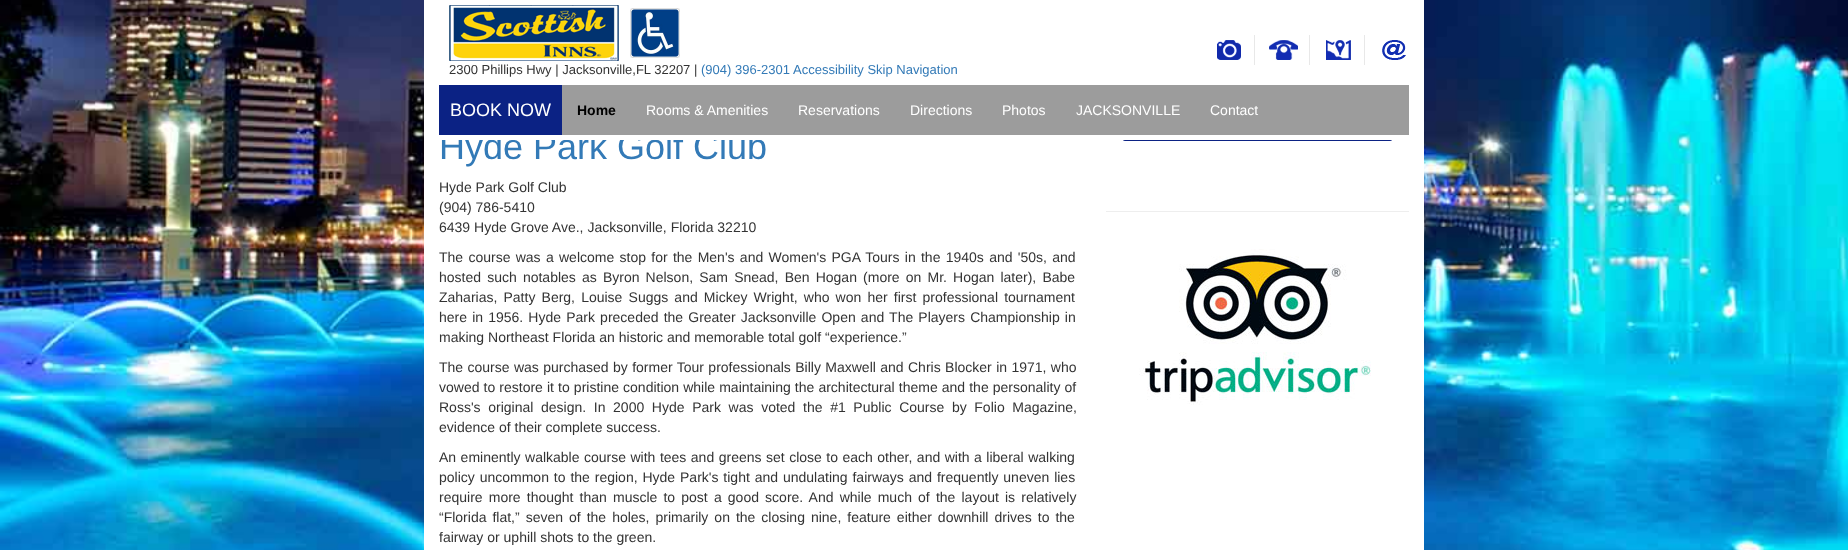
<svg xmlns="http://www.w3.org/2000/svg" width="1848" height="550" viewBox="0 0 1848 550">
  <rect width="100%" height="100%" fill="rgb(255,255,255)"/>
  <image x="0" y="0" width="1848" height="550" href="pic1.png"/>
  <rect x="424" y="140" width="1000" height="410" fill="rgb(255,255,255)"/>
  <text x="439" y="159" font-family="Liberation Sans" font-size="36" fill="rgb(51,122,183)">Hyde Park Golf Club</text>
  <path d="M1121 76H1394V136C1394 139 1392 141 1389 141H1126C1123 141 1121 139 1121 136Z" fill="rgb(11,34,132)"/>
  <rect x="424" y="0" width="1000" height="140" fill="rgb(255,255,255)"/>
  <image x="1217" y="40" width="24" height="20" href="pic2.png"/>
  <rect x="1254" y="35" width="1" height="30" fill="rgb(232,232,232)"/>
  <image x="1269" y="40" width="29" height="20" href="pic3.png"/>
  <rect x="1309" y="35" width="1" height="30" fill="rgb(232,232,232)"/>
  <image x="1326" y="40" width="25" height="20" href="pic4.png"/>
  <rect x="1364" y="35" width="1" height="30" fill="rgb(232,232,232)"/>
  <image x="1382" y="40" width="24" height="20" href="pic5.png"/>
  <image x="449" y="5" width="170" height="56" href="pic6.png"/>
  <image x="630" y="8" width="50" height="50" href="pic7.png"/>
  <text x="449" y="74" font-family="Liberation Sans" font-size="13" fill="rgb(51,51,51)">2300 Phillips Hwy | Jacksonville,FL 32207 |</text>
  <g font-family="Liberation Sans" font-size="13" fill="rgb(51,122,183)">
    <text x="701" y="74">(904) 396-2301</text>
    <text x="793" y="74">Accessibility Skip Navigation</text>
  </g>
  <rect x="562" y="85" width="847" height="50" fill="rgb(156,156,156)"/>
  <rect x="439" y="85" width="123" height="50" fill="rgb(11,34,132)"/>
  <text x="450" y="116" font-family="Liberation Sans" font-size="18" fill="rgb(255,255,255)">BOOK NOW</text>
  <text x="577" y="115" font-family="Liberation Sans" font-size="14" font-weight="bold" fill="rgb(0,0,0)">Home</text>
  <g font-family="Liberation Sans" font-size="14" fill="rgb(255,255,255)">
    <text x="646" y="115">Rooms &amp; Amenities</text>
    <text x="798" y="115">Reservations</text>
    <text x="910" y="115">Directions</text>
    <text x="1002" y="115">Photos</text>
    <text x="1076" y="115">JACKSONVILLE</text>
    <text x="1210" y="115">Contact</text>
  </g>
  <g font-family="Liberation Sans" font-size="14" fill="rgb(51,51,51)">
    <text>
      <tspan x="439" y="192">Hyde Park Golf Club</tspan>
      <tspan x="439" y="212">(904) 786-5410</tspan>
      <tspan x="439" y="232">6439 Hyde Grove Ave., Jacksonville, Florida 32210</tspan>
    </text>
    <text>
      <tspan x="439" y="262" word-spacing="1.4">The course was a welcome stop for the Men's and Women's PGA Tours in the 1940s and '50s, and</tspan>
      <tspan x="439" y="282" word-spacing="2.25">hosted such notables as Byron Nelson, Sam Snead, Ben Hogan (more on Mr. Hogan later), Babe</tspan>
      <tspan x="439" y="302" word-spacing="2.25">Zaharias, Patty Berg, Louise Suggs and Mickey Wright, who won her first professional tournament</tspan>
      <tspan x="439" y="322" word-spacing="1.25">here in 1956. Hyde Park preceded the Greater Jacksonville Open and The Players Championship in</tspan>
      <tspan x="439" y="342">making Northeast Florida an historic and memorable total golf “experience.”</tspan>
    </text>
    <text>
      <tspan x="439" y="372" word-spacing="0.5">The course was purchased by former Tour professionals Billy Maxwell and Chris Blocker in 1971, who</tspan>
      <tspan x="439" y="392" word-spacing="0.2">vowed to restore it to pristine condition while maintaining the architectural theme and the personality of</tspan>
      <tspan x="439" y="412" word-spacing="3.75">Ross's original design. In 2000 Hyde Park was voted the #1 Public Course by Folio Magazine,</tspan>
      <tspan x="439" y="432">evidence of their complete success.</tspan>
    </text>
    <text>
      <tspan x="439" y="462" word-spacing="0.6">An eminently walkable course with tees and greens set close to each other, and with a liberal walking</tspan>
      <tspan x="439" y="482" word-spacing="1">policy uncommon to the region, Hyde Park's tight and undulating fairways and frequently uneven lies</tspan>
      <tspan x="439" y="502" word-spacing="2.25">require more thought than muscle to post a good score. And while much of the layout is relatively</tspan>
      <tspan x="439" y="522" word-spacing="2.1">“Florida flat,” seven of the holes, primarily on the closing nine, feature either downhill drives to the</tspan>
      <tspan x="439" y="542">fairway or uphill shots to the green.</tspan>
    </text>
  </g>
  <rect x="1106" y="211" width="303" height="1" fill="rgb(238,238,238)"/>
  <image x="1139" y="249" width="232" height="156" href="pic8.png"/>
</svg>
